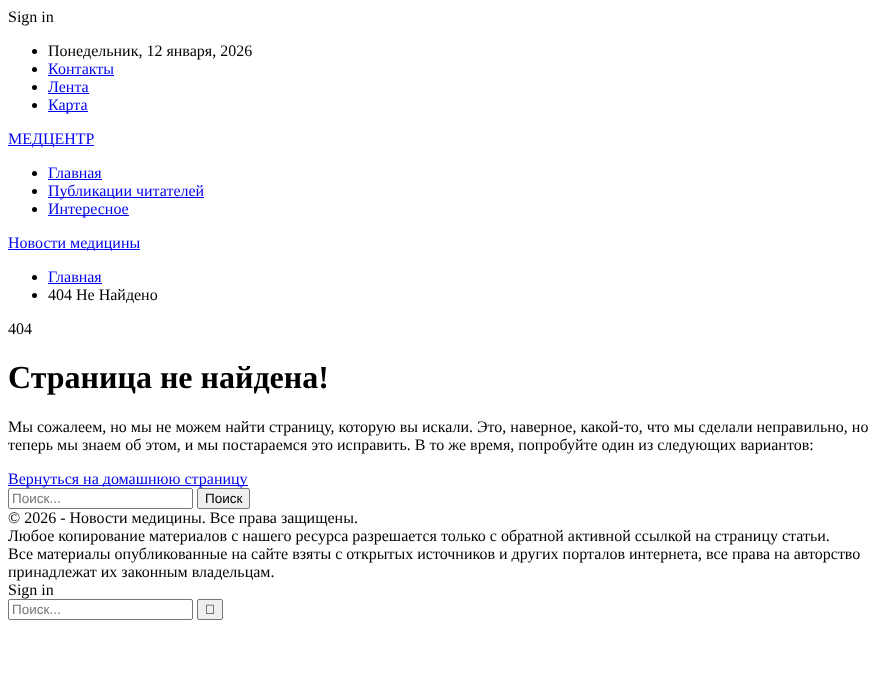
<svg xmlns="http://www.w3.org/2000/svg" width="890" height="673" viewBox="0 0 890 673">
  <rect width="100%" height="100%" fill="rgb(255,255,255)"/>
  <text x="8" y="22" font-family="Liberation Serif" font-size="16" fill="rgb(0,0,0)">Sign in</text>
  <circle cx="34.5" cy="51.5" r="2.5" fill="rgb(0,0,0)"/>
  <text x="48" y="56" font-family="Liberation Serif" font-size="16" fill="rgb(0,0,0)">Понедельник, 12 января, 2026</text>
  <circle cx="34.5" cy="69.5" r="2.5" fill="rgb(0,0,0)"/>
  <text x="48" y="74" font-family="Liberation Serif" font-size="16" fill="rgb(0,0,238)">Контакты</text>
  <rect x="48" y="75" width="66" height="1" fill="rgb(0,0,238)"/>
  <circle cx="34.5" cy="87.5" r="2.5" fill="rgb(0,0,0)"/>
  <text x="48" y="92" font-family="Liberation Serif" font-size="16" fill="rgb(0,0,238)">Лента</text>
  <rect x="48" y="93" width="41" height="1" fill="rgb(0,0,238)"/>
  <circle cx="34.5" cy="105.5" r="2.5" fill="rgb(0,0,0)"/>
  <rect x="48" y="111" width="40" height="1" fill="rgb(0,0,238)"/>
  <text x="48" y="110" font-family="Liberation Serif" font-size="16" fill="rgb(0,0,238)">Карта</text>
  <rect x="8" y="145" width="86" height="1" fill="rgb(0,0,238)"/>
  <text x="8" y="144" font-family="Liberation Serif" font-size="16" fill="rgb(0,0,238)">МЕДЦЕНТР</text>
  <circle cx="34.5" cy="173.5" r="2.5" fill="rgb(0,0,0)"/>
  <text x="48" y="178" font-family="Liberation Serif" font-size="16" fill="rgb(0,0,238)">Главная</text>
  <rect x="48" y="179" width="54" height="1" fill="rgb(0,0,238)"/>
  <circle cx="34.5" cy="191.5" r="2.5" fill="rgb(0,0,0)"/>
  <rect x="48" y="197" width="156" height="1" fill="rgb(0,0,238)"/>
  <text x="48" y="196" font-family="Liberation Serif" font-size="16" fill="rgb(0,0,238)">Публикации читателей</text>
  <circle cx="34.5" cy="209.5" r="2.5" fill="rgb(0,0,0)"/>
  <rect x="48" y="215" width="81" height="1" fill="rgb(0,0,238)"/>
  <text x="48" y="214" font-family="Liberation Serif" font-size="16" fill="rgb(0,0,238)">Интересное</text>
  <rect x="8" y="249" width="132" height="1" fill="rgb(0,0,238)"/>
  <text x="8" y="248" font-family="Liberation Serif" font-size="16" fill="rgb(0,0,238)">Новости медицины</text>
  <circle cx="34.5" cy="277.5" r="2.5" fill="rgb(0,0,0)"/>
  <text x="48" y="282" font-family="Liberation Serif" font-size="16" fill="rgb(0,0,238)">Главная</text>
  <rect x="48" y="283" width="54" height="1" fill="rgb(0,0,238)"/>
  <circle cx="34.5" cy="295.5" r="2.5" fill="rgb(0,0,0)"/>
  <g font-family="Liberation Serif" font-size="16" fill="rgb(0,0,0)">
    <text x="48" y="300">404 Не Найдено</text>
    <text x="8" y="334">404</text>
  </g>
  <text x="8" y="388" font-family="Liberation Serif" font-size="32" font-weight="bold" fill="rgb(0,0,0)">Страница не найдена!</text>
  <g font-family="Liberation Serif" font-size="16" fill="rgb(0,0,0)">
    <text>
      <tspan x="8" y="432">Мы сожалеем, но мы не можем найти страницу, которую вы искали. Это, наверное, какой-то, что мы сделали неправильно, но</tspan>
      <tspan x="8" y="450">теперь мы знаем об этом, и мы постараемся это исправить. В то же время, попробуйте один из следующих вариантов:</tspan>
    </text>
  </g>
  <rect x="8" y="485" width="240" height="1" fill="rgb(0,0,238)"/>
  <text x="8" y="484" font-family="Liberation Serif" font-size="16" fill="rgb(0,0,238)">Вернуться на домашнюю страницу</text>
  <rect x="8.5" y="488.5" width="184" height="20" rx="1.5" fill="none" stroke="rgb(118,118,118)"/>
  <text x="12" y="503" font-family="Liberation Sans" font-size="13.5" fill="rgb(117,117,117)">Поиск...</text>
  <rect x="197.5" y="488.5" width="52" height="20" rx="1.5" fill="rgb(239,239,239)" stroke="rgb(118,118,118)"/>
  <text x="205" y="503" font-family="Liberation Sans" font-size="13.5" fill="rgb(0,0,0)">Поиск</text>
  <g font-family="Liberation Serif" font-size="16" fill="rgb(0,0,0)">
    <text>
      <tspan x="8" y="523">© 2026 - Новости медицины. Все права защищены.</tspan>
      <tspan x="8" y="541">Любое копирование материалов с нашего ресурса разрешается только с обратной активной ссылкой на страницу статьи.</tspan>
      <tspan x="8" y="559">Все материалы опубликованные на сайте взяты с открытых источников и других порталов интернета, все права на авторство</tspan>
      <tspan x="8" y="577">принадлежат их законным владельцам.</tspan>
      <tspan x="8" y="595">Sign in</tspan>
    </text>
  </g>
  <rect x="8.5" y="599.5" width="184" height="20" rx="1.5" fill="none" stroke="rgb(118,118,118)"/>
  <text x="12" y="614" font-family="Liberation Sans" font-size="13.5" fill="rgb(117,117,117)">Поиск...</text>
  <rect x="197.5" y="599.5" width="25" height="20" rx="1.5" fill="rgb(239,239,239)" stroke="rgb(118,118,118)"/>
  <image x="206" y="604" width="8" height="10" href="pic1.png"/>
</svg>
